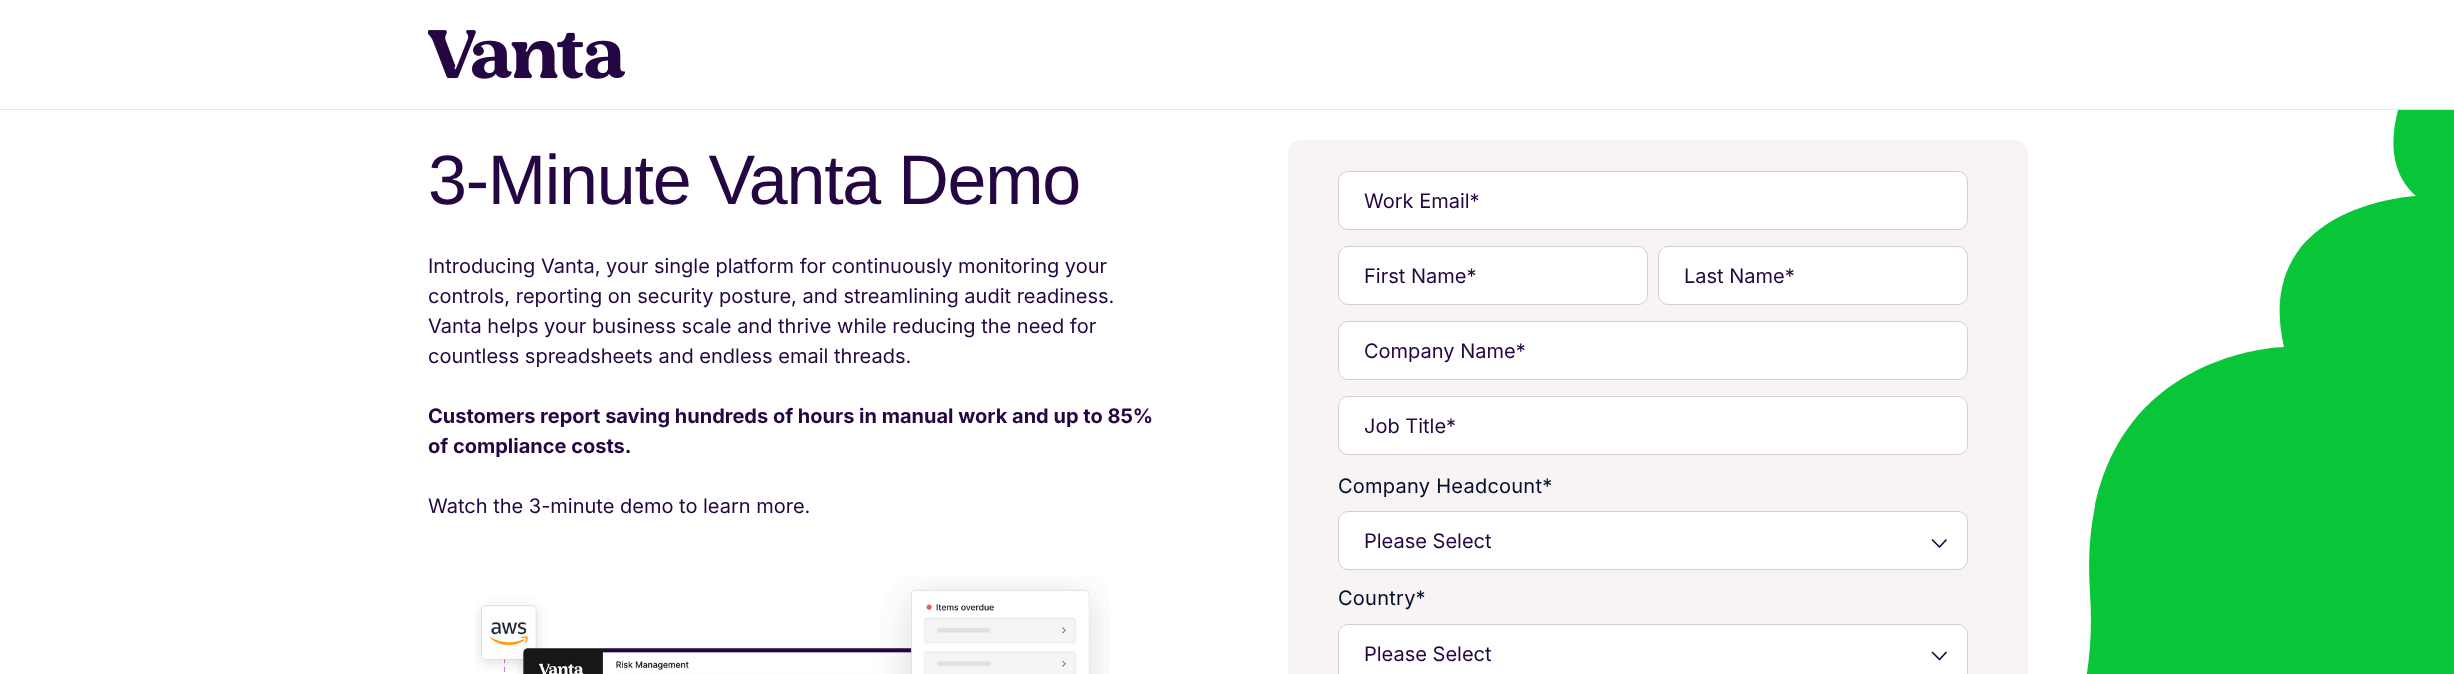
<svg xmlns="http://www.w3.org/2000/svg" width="2454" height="674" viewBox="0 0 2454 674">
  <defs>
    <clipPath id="clip1"><rect x="1616" y="110" width="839" height="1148"/></clipPath>
  </defs>
  <rect width="100%" height="100%" fill="rgb(255,255,255)"/>
  <rect x="0" y="109" width="2454" height="1" fill="rgb(230,230,230)"/>
  <image x="428" y="30" width="198" height="49" href="pic1.png"/>
  <g clip-path="url(#clip1)">
    <path d="M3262 222C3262 222 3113-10 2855 74C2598 159 2430 42 2430 42C2430 42 2358 144 2416 196C2416 196 2251 204 2284 347C2284 347 2074 351 2090 593C2106 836 1909 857 1909 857C1909 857 1938 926 1988 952C1988 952 1594 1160 1869 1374L2216 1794L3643 614C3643 614 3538 108 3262 222Z" fill="rgb(9,198,57)"/>
  </g>
  <text x="428" y="204" font-family="Liberation Sans" font-size="70" letter-spacing="-1.25" fill="rgb(36,6,66)">3-Minute Vanta Demo</text>
  <g font-family="Inter" font-size="20" fill="rgb(36,6,66)">
    <text>
      <tspan x="428" y="273">Introducing Vanta, your single platform for continuously monitoring your</tspan>
      <tspan x="428" y="303">controls, reporting on security posture, and streamlining audit readiness.</tspan>
      <tspan x="428" y="333">Vanta helps your business scale and thrive while reducing the need for</tspan>
      <tspan x="428" y="363">countless spreadsheets and endless email threads.</tspan>
    </text>
  </g>
  <g font-family="Inter" font-size="20" font-weight="bold" fill="rgb(36,6,66)">
    <text>
      <tspan x="428" y="423">Customers report saving hundreds of hours in manual work and up to 85%</tspan>
      <tspan x="428" y="453">of compliance costs.</tspan>
    </text>
  </g>
  <text x="428" y="513" font-family="Inter" font-size="20" fill="rgb(36,6,66)">Watch the 3-minute demo to learn more.</text>
  <image x="475" y="576" width="635" height="98" href="pic2.png"/>
  <rect x="1288" y="140" width="740" height="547" rx="13" fill="rgb(248,244,243)"/>
  <rect x="1338" y="171" width="630" height="59" rx="10" fill="rgb(255,255,255)"/>
  <rect x="1338.5" y="171.5" width="629" height="58" rx="9.5" fill="none" stroke="rgba(36,6,66,0.2)"/>
  <text x="1364" y="208" font-family="Inter" font-size="20" fill="rgb(36,6,66)">Work Email*</text>
  <rect x="1338" y="246" width="310" height="59" rx="10" fill="rgb(255,255,255)"/>
  <rect x="1338.5" y="246.5" width="309" height="58" rx="9.5" fill="none" stroke="rgba(36,6,66,0.2)"/>
  <text x="1364" y="283" font-family="Inter" font-size="20" fill="rgb(36,6,66)">First Name*</text>
  <rect x="1658" y="246" width="310" height="59" rx="10" fill="rgb(255,255,255)"/>
  <rect x="1658.5" y="246.5" width="309" height="58" rx="9.5" fill="none" stroke="rgba(36,6,66,0.2)"/>
  <text x="1684" y="283" font-family="Inter" font-size="20" fill="rgb(36,6,66)">Last Name*</text>
  <rect x="1338" y="321" width="630" height="59" rx="10" fill="rgb(255,255,255)"/>
  <rect x="1338.5" y="321.5" width="629" height="58" rx="9.5" fill="none" stroke="rgba(36,6,66,0.2)"/>
  <text x="1364" y="358" font-family="Inter" font-size="20" fill="rgb(36,6,66)">Company Name*</text>
  <rect x="1338" y="396" width="630" height="59" rx="10" fill="rgb(255,255,255)"/>
  <rect x="1338.5" y="396.5" width="629" height="58" rx="9.5" fill="none" stroke="rgba(36,6,66,0.2)"/>
  <text x="1364" y="433" font-family="Inter" font-size="20" fill="rgb(36,6,66)">Job Title*</text>
  <text x="1338" y="493" font-family="Inter" font-size="20" letter-spacing="0.25" fill="rgb(0,12,45)">Company Headcount*</text>
  <rect x="1338" y="511" width="630" height="59" rx="10" fill="rgb(255,255,255)"/>
  <path d="M1946 540L1939.5 547L1932.5 540" fill="none" stroke="rgb(36,6,66)" stroke-width="1.7" stroke-linecap="round" stroke-linejoin="round"/>
  <rect x="1338.5" y="511.5" width="629" height="58" rx="9.5" fill="none" stroke="rgba(36,6,66,0.2)"/>
  <text x="1364" y="548" font-family="Inter" font-size="20" fill="rgb(36,6,66)">Please Select</text>
  <text x="1338" y="605" font-family="Inter" font-size="20" letter-spacing="0.25" fill="rgb(0,12,45)">Country*</text>
  <rect x="1338" y="624" width="630" height="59" rx="10" fill="rgb(255,255,255)"/>
  <path d="M1946 652.5L1939.5 659.5L1932.5 652.5" fill="none" stroke="rgb(36,6,66)" stroke-width="1.7" stroke-linecap="round" stroke-linejoin="round"/>
  <rect x="1338.5" y="624.5" width="629" height="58" rx="9.5" fill="none" stroke="rgba(36,6,66,0.2)"/>
  <text x="1364" y="661" font-family="Inter" font-size="20" fill="rgb(36,6,66)">Please Select</text>
</svg>
